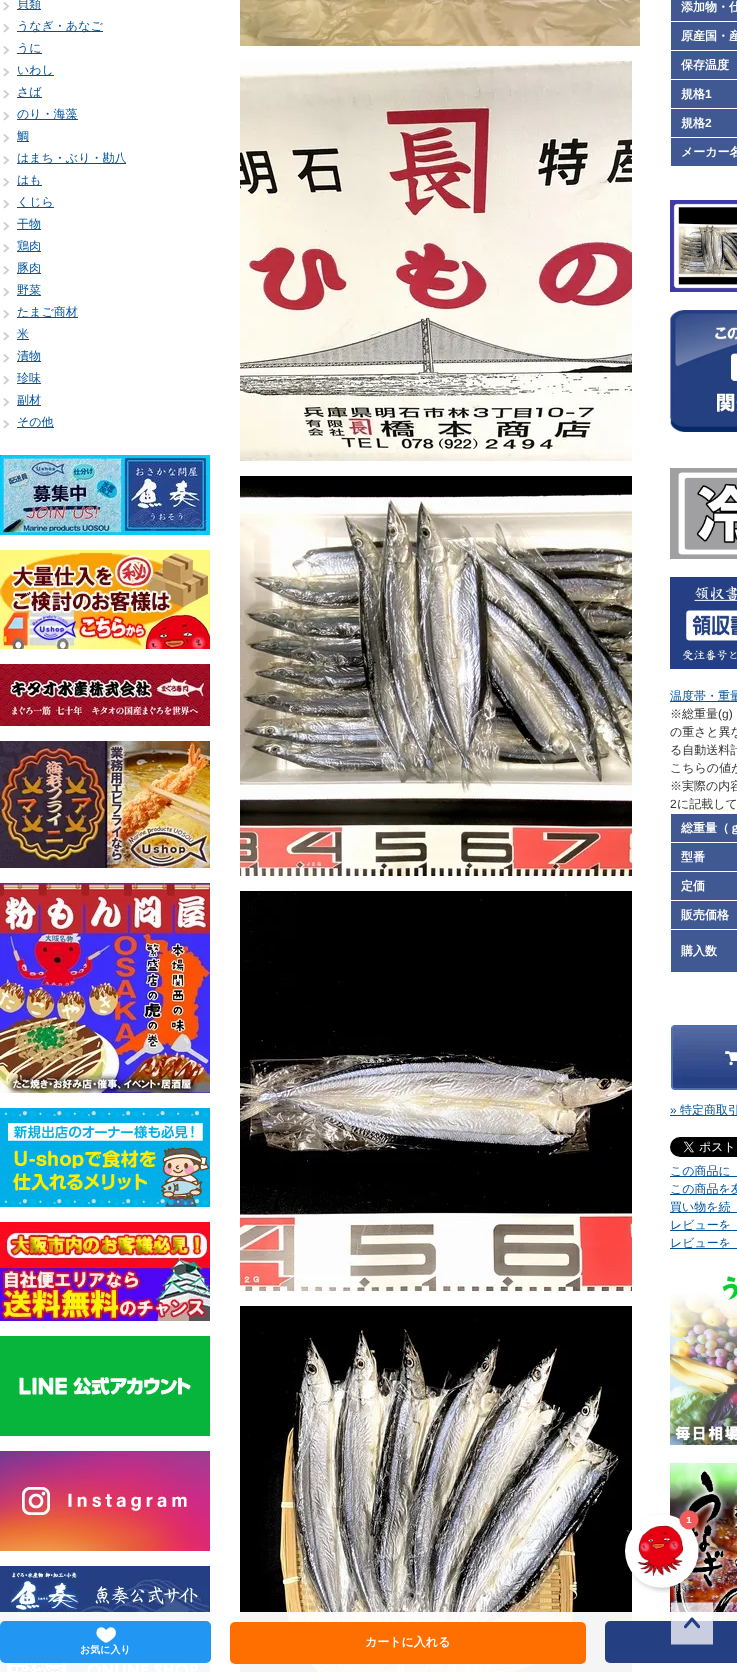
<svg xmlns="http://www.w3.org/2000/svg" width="737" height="1672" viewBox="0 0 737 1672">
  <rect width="100%" height="100%" fill="rgb(255,255,255)"/>
  <image x="3" y="2" width="6" height="9" href="pic1.png"/>
  <rect x="17" y="9" width="24" height="1" fill="rgb(0,82,155)"/>
  <text x="17" y="8" font-family="WenQuanYi Zen Hei" font-size="12" font-weight="500" fill="rgb(0,82,155)">貝類</text>
  <image x="3" y="24" width="6" height="9" href="pic1.png"/>
  <rect x="17" y="31" width="86" height="1" fill="rgb(0,82,155)"/>
  <text x="17" y="30" font-family="WenQuanYi Zen Hei" font-size="12" font-weight="500" fill="rgb(0,82,155)">うなぎ・あなご</text>
  <image x="3" y="46" width="6" height="9" href="pic1.png"/>
  <rect x="17" y="53" width="25" height="1" fill="rgb(0,82,155)"/>
  <text x="17" y="52" font-family="WenQuanYi Zen Hei" font-size="12" font-weight="500" fill="rgb(0,82,155)">うに</text>
  <image x="3" y="68" width="6" height="9" href="pic1.png"/>
  <rect x="17" y="75" width="37" height="1" fill="rgb(0,82,155)"/>
  <text x="17" y="74" font-family="WenQuanYi Zen Hei" font-size="12" font-weight="500" fill="rgb(0,82,155)">いわし</text>
  <image x="3" y="90" width="6" height="9" href="pic1.png"/>
  <rect x="17" y="97" width="25" height="1" fill="rgb(0,82,155)"/>
  <text x="17" y="96" font-family="WenQuanYi Zen Hei" font-size="12" font-weight="500" fill="rgb(0,82,155)">さば</text>
  <image x="3" y="112" width="6" height="9" href="pic1.png"/>
  <rect x="17" y="119" width="61" height="1" fill="rgb(0,82,155)"/>
  <text x="17" y="118" font-family="WenQuanYi Zen Hei" font-size="12" font-weight="500" fill="rgb(0,82,155)">のり・海藻</text>
  <image x="3" y="134" width="6" height="9" href="pic1.png"/>
  <rect x="17" y="141" width="12" height="1" fill="rgb(0,82,155)"/>
  <text x="17" y="140" font-family="WenQuanYi Zen Hei" font-size="12" font-weight="500" fill="rgb(0,82,155)">鯛</text>
  <image x="3" y="156" width="6" height="9" href="pic1.png"/>
  <rect x="17" y="163" width="109" height="1" fill="rgb(0,82,155)"/>
  <text x="17" y="162" font-family="WenQuanYi Zen Hei" font-size="12" font-weight="500" fill="rgb(0,82,155)">はまち・ぶり・勘八</text>
  <image x="3" y="178" width="6" height="9" href="pic1.png"/>
  <rect x="17" y="185" width="25" height="1" fill="rgb(0,82,155)"/>
  <text x="17" y="184" font-family="WenQuanYi Zen Hei" font-size="12" font-weight="500" fill="rgb(0,82,155)">はも</text>
  <image x="3" y="200" width="6" height="9" href="pic1.png"/>
  <rect x="17" y="207" width="37" height="1" fill="rgb(0,82,155)"/>
  <text x="17" y="206" font-family="WenQuanYi Zen Hei" font-size="12" font-weight="500" fill="rgb(0,82,155)">くじら</text>
  <image x="3" y="222" width="6" height="9" href="pic1.png"/>
  <rect x="17" y="229" width="24" height="1" fill="rgb(0,82,155)"/>
  <text x="17" y="228" font-family="WenQuanYi Zen Hei" font-size="12" font-weight="500" fill="rgb(0,82,155)">干物</text>
  <image x="3" y="244" width="6" height="9" href="pic1.png"/>
  <rect x="17" y="251" width="24" height="1" fill="rgb(0,82,155)"/>
  <text x="17" y="250" font-family="WenQuanYi Zen Hei" font-size="12" font-weight="500" fill="rgb(0,82,155)">鶏肉</text>
  <image x="3" y="266" width="6" height="9" href="pic1.png"/>
  <rect x="17" y="273" width="24" height="1" fill="rgb(0,82,155)"/>
  <text x="17" y="272" font-family="WenQuanYi Zen Hei" font-size="12" font-weight="500" fill="rgb(0,82,155)">豚肉</text>
  <image x="3" y="288" width="6" height="9" href="pic1.png"/>
  <rect x="17" y="295" width="24" height="1" fill="rgb(0,82,155)"/>
  <text x="17" y="294" font-family="WenQuanYi Zen Hei" font-size="12" font-weight="500" fill="rgb(0,82,155)">野菜</text>
  <image x="3" y="310" width="6" height="9" href="pic1.png"/>
  <rect x="17" y="317" width="61" height="1" fill="rgb(0,82,155)"/>
  <text x="17" y="316" font-family="WenQuanYi Zen Hei" font-size="12" font-weight="500" fill="rgb(0,82,155)">たまご商材</text>
  <image x="3" y="332" width="6" height="9" href="pic1.png"/>
  <rect x="17" y="339" width="12" height="1" fill="rgb(0,82,155)"/>
  <text x="17" y="338" font-family="WenQuanYi Zen Hei" font-size="12" font-weight="500" fill="rgb(0,82,155)">米</text>
  <image x="3" y="354" width="6" height="9" href="pic1.png"/>
  <rect x="17" y="361" width="24" height="1" fill="rgb(0,82,155)"/>
  <text x="17" y="360" font-family="WenQuanYi Zen Hei" font-size="12" font-weight="500" fill="rgb(0,82,155)">漬物</text>
  <image x="3" y="376" width="6" height="9" href="pic1.png"/>
  <rect x="17" y="383" width="24" height="1" fill="rgb(0,82,155)"/>
  <text x="17" y="382" font-family="WenQuanYi Zen Hei" font-size="12" font-weight="500" fill="rgb(0,82,155)">珍味</text>
  <image x="3" y="398" width="6" height="9" href="pic1.png"/>
  <rect x="17" y="405" width="24" height="1" fill="rgb(0,82,155)"/>
  <text x="17" y="404" font-family="WenQuanYi Zen Hei" font-size="12" font-weight="500" fill="rgb(0,82,155)">副材</text>
  <image x="3" y="420" width="6" height="9" href="pic1.png"/>
  <rect x="17" y="427" width="37" height="1" fill="rgb(0,82,155)"/>
  <text x="17" y="426" font-family="WenQuanYi Zen Hei" font-size="12" font-weight="500" fill="rgb(0,82,155)">その他</text>
  <image x="0" y="455" width="210" height="80" href="pic2.png"/>
  <image x="0" y="550" width="210" height="99" href="pic3.png"/>
  <image x="0" y="664" width="210" height="62" href="pic4.png"/>
  <image x="0" y="741" width="210" height="127" href="pic5.png"/>
  <image x="0" y="883" width="210" height="210" href="pic6.png"/>
  <image x="0" y="1108" width="210" height="99" href="pic7.png"/>
  <image x="0" y="1222" width="210" height="99" href="pic8.png"/>
  <image x="0" y="1336" width="210" height="100" href="pic9.png"/>
  <image x="0" y="1451" width="210" height="100" href="pic10.png"/>
  <image x="0" y="1566" width="210" height="60" href="pic11.png"/>
  <image x="0" y="1658" width="210" height="14" href="pic12.png"/>
  <image x="240" y="0" width="400" height="46" href="pic13.png"/>
  <image x="240" y="61" width="392" height="400" href="pic14.png"/>
  <image x="240" y="476" width="392" height="400" href="pic15.png"/>
  <image x="240" y="891" width="392" height="400" href="pic16.png"/>
  <image x="240" y="1306" width="392" height="366" href="pic17.png"/>
  <rect x="671" y="0" width="66" height="21" fill="rgb(65,89,147)"/>
  <text x="681" y="11" font-family="WenQuanYi Zen Hei" font-size="12" font-weight="bold" fill="rgb(255,255,255)">添加物・仕</text>
  <rect x="671" y="22" width="66" height="28" fill="rgb(65,89,147)"/>
  <text x="681" y="40" font-family="WenQuanYi Zen Hei" font-size="12" font-weight="bold" fill="rgb(255,255,255)">原産国・産</text>
  <rect x="671" y="51" width="66" height="28" fill="rgb(65,89,147)"/>
  <text x="681" y="69" font-family="WenQuanYi Zen Hei" font-size="12" font-weight="bold" fill="rgb(255,255,255)">保存温度</text>
  <rect x="671" y="80" width="66" height="28" fill="rgb(65,89,147)"/>
  <text x="681" y="98" font-family="WenQuanYi Zen Hei" font-size="12" font-weight="bold" fill="rgb(255,255,255)">規格</text>
  <text x="705" y="98" font-family="Liberation Sans" font-size="12" font-weight="bold" fill="rgb(255,255,255)">1</text>
  <rect x="671" y="109" width="66" height="28" fill="rgb(65,89,147)"/>
  <text x="681" y="127" font-family="WenQuanYi Zen Hei" font-size="12" font-weight="bold" fill="rgb(255,255,255)">規格</text>
  <text x="705" y="127" font-family="Liberation Sans" font-size="12" font-weight="bold" fill="rgb(255,255,255)">2</text>
  <rect x="671" y="138" width="66" height="28" fill="rgb(65,89,147)"/>
  <text x="681" y="156" font-family="WenQuanYi Zen Hei" font-size="12" font-weight="bold" fill="rgb(255,255,255)">メーカー名</text>
  <image x="670" y="200" width="67" height="92" href="pic18.png"/>
  <image x="670" y="310" width="67" height="122" href="pic19.png"/>
  <image x="670" y="468" width="67" height="91" href="pic20.png"/>
  <image x="670" y="577" width="67" height="92" href="pic21.png"/>
  <rect x="670" y="701" width="67" height="1" fill="rgb(0,82,155)"/>
  <text x="670" y="700" font-family="WenQuanYi Zen Hei" font-size="12" font-weight="500" fill="rgb(0,82,155)">温度帯・重量</text>
  <text x="670" y="718" font-family="WenQuanYi Zen Hei" font-size="12" font-weight="500" fill="rgb(51,51,51)">※総重量</text>
  <text x="718" y="718" font-family="Liberation Sans" font-size="12" fill="rgb(51,51,51)">(g)</text>
  <g font-family="WenQuanYi Zen Hei" font-size="12" font-weight="500" fill="rgb(51,51,51)">
    <text>
      <tspan x="670" y="736">の重さと異な</tspan>
      <tspan x="670" y="754">る自動送料計</tspan>
      <tspan x="670" y="772">こちらの値が</tspan>
      <tspan x="670" y="790">※実際の内容</tspan>
    </text>
  </g>
  <text x="670" y="808" font-family="Liberation Sans" font-size="12" fill="rgb(51,51,51)">2</text>
  <text x="677" y="808" font-family="WenQuanYi Zen Hei" font-size="12" font-weight="500" fill="rgb(51,51,51)">に記載して</text>
  <rect x="671" y="814" width="66" height="28" fill="rgb(65,89,147)"/>
  <text x="681" y="832" font-family="WenQuanYi Zen Hei" font-size="12" font-weight="bold" fill="rgb(255,255,255)">総重量（ｇ</text>
  <rect x="671" y="843" width="66" height="28" fill="rgb(65,89,147)"/>
  <text x="681" y="861" font-family="WenQuanYi Zen Hei" font-size="12" font-weight="bold" fill="rgb(255,255,255)">型番</text>
  <rect x="671" y="872" width="66" height="28" fill="rgb(65,89,147)"/>
  <text x="681" y="890" font-family="WenQuanYi Zen Hei" font-size="12" font-weight="bold" fill="rgb(255,255,255)">定価</text>
  <rect x="671" y="901" width="66" height="28" fill="rgb(65,89,147)"/>
  <text x="681" y="919" font-family="WenQuanYi Zen Hei" font-size="12" font-weight="bold" fill="rgb(255,255,255)">販売価格</text>
  <rect x="671" y="930" width="66" height="42" fill="rgb(65,89,147)"/>
  <text x="681" y="955" font-family="WenQuanYi Zen Hei" font-size="12" font-weight="bold" fill="rgb(255,255,255)">購入数</text>
  <image x="671" y="1025" width="66" height="65" href="pic22.png"/>
  <text x="670" y="1114" font-family="Liberation Sans" font-size="12" fill="rgb(0,82,155)">»</text>
  <rect x="670" y="1115" width="67" height="1" fill="rgb(0,82,155)"/>
  <text x="680" y="1114" font-family="WenQuanYi Zen Hei" font-size="12" font-weight="500" fill="rgb(0,82,155)">特定商取引</text>
  <image x="670" y="1137" width="67" height="20" href="pic23.png"/>
  <rect x="670" y="1176" width="67" height="1" fill="rgb(0,82,155)"/>
  <text x="670" y="1175" font-family="WenQuanYi Zen Hei" font-size="12" font-weight="500" fill="rgb(0,82,155)">この商品に</text>
  <rect x="670" y="1194" width="67" height="1" fill="rgb(0,82,155)"/>
  <text x="670" y="1193" font-family="WenQuanYi Zen Hei" font-size="12" font-weight="500" fill="rgb(0,82,155)">この商品を友</text>
  <rect x="670" y="1212" width="67" height="1" fill="rgb(0,82,155)"/>
  <text x="670" y="1211" font-family="WenQuanYi Zen Hei" font-size="12" font-weight="500" fill="rgb(0,82,155)">買い物を続</text>
  <rect x="670" y="1230" width="67" height="1" fill="rgb(0,82,155)"/>
  <text x="670" y="1229" font-family="WenQuanYi Zen Hei" font-size="12" font-weight="500" fill="rgb(0,82,155)">レビューを</text>
  <rect x="670" y="1248" width="67" height="1" fill="rgb(0,82,155)"/>
  <text x="670" y="1247" font-family="WenQuanYi Zen Hei" font-size="12" font-weight="500" fill="rgb(0,82,155)">レビューを</text>
  <image x="670" y="1276" width="67" height="169" href="pic24.png"/>
  <image x="670" y="1463" width="67" height="158" href="pic25.png"/>
  <image x="670" y="1663" width="67" height="9" href="pic27.png"/>
  <rect x="0" y="1612" width="737" height="60" fill="rgba(255,255,255,0.8)"/>
  <rect x="0" y="1612" width="737" height="60" fill="rgba(255,255,255,0.8)"/>
  <rect x="230" y="1622" width="356" height="42" rx="5" fill="rgb(255,111,0)"/>
  <text x="365" y="1646" font-family="WenQuanYi Zen Hei" font-size="12" font-weight="bold" fill="rgb(255,255,255)">カートに入れる</text>
  <rect x="605" y="1621" width="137" height="42" rx="5" fill="rgb(36,63,130)"/>
  <rect x="0" y="1621" width="211" height="42" rx="5" fill="rgb(33,150,243)"/>
  <image x="95" y="1626" width="21" height="17" href="pic26.png"/>
  <text x="80" y="1653" font-family="WenQuanYi Zen Hei" font-size="10" font-weight="bold" fill="rgb(255,255,255)">お気に入り</text>
  <image x="625" y="1510" width="79" height="83" href="pic28.png"/>
  <image x="671" y="1602" width="42" height="43" href="pic29.png"/>
</svg>
